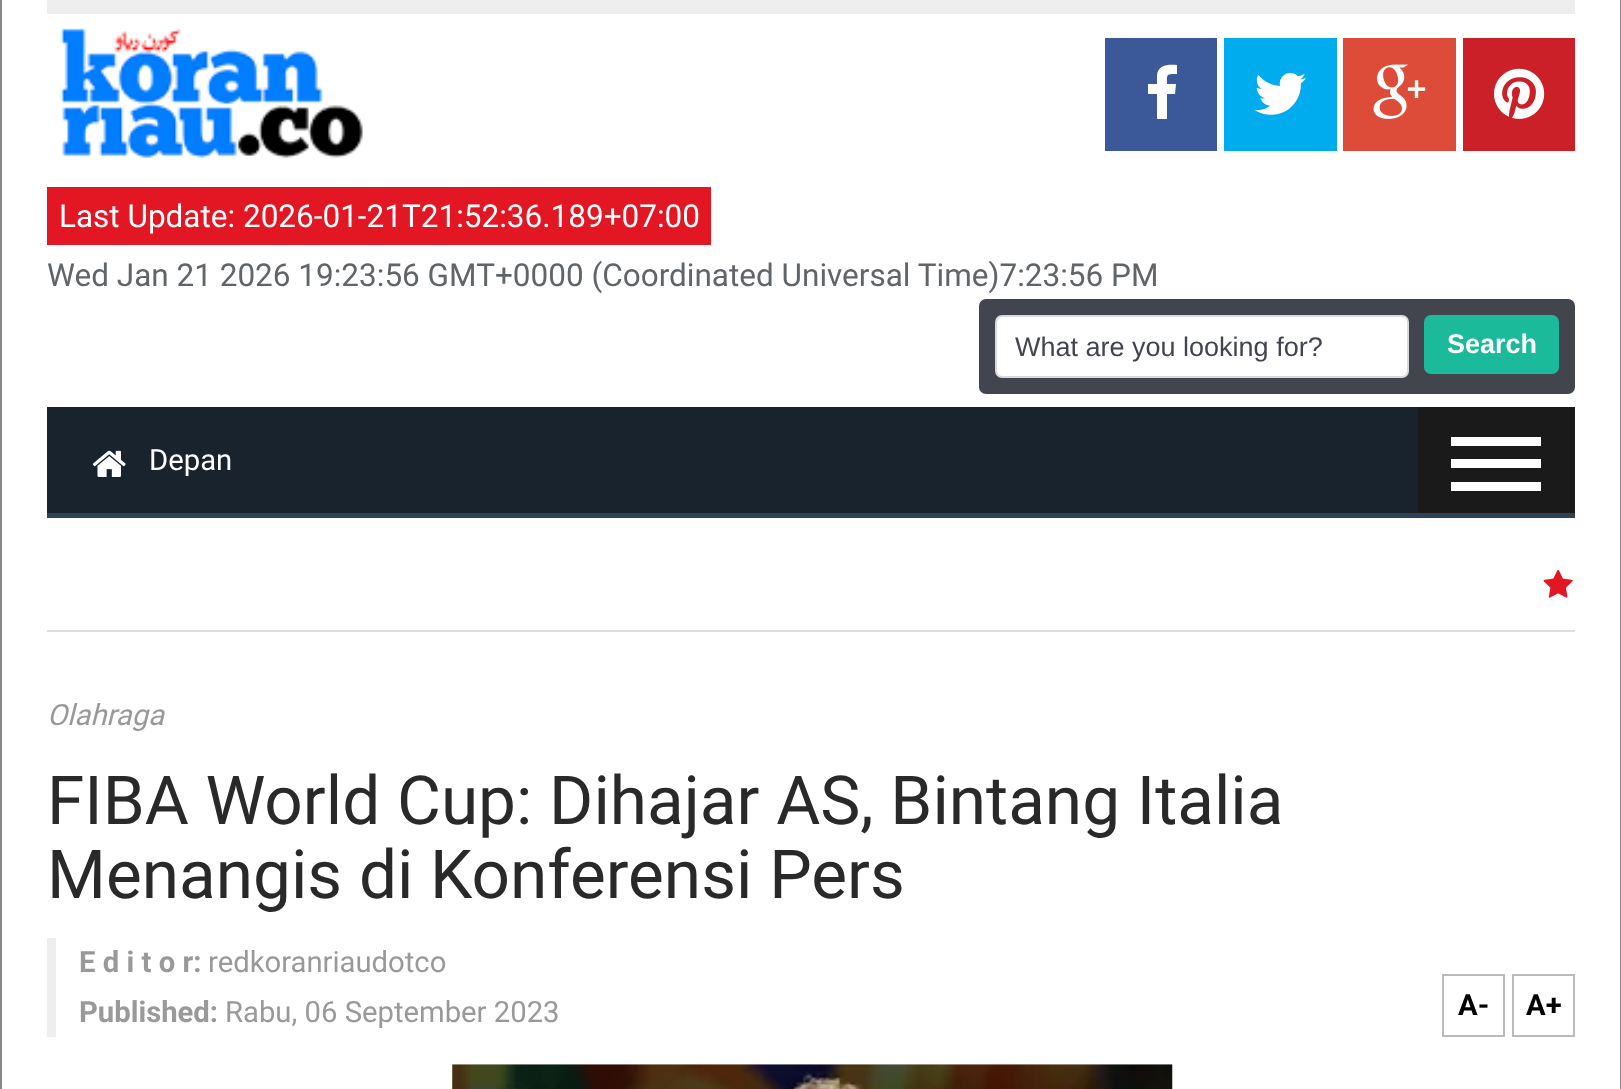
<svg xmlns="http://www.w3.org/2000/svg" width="1621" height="1089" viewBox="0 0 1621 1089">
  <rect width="100%" height="100%" fill="rgb(255,255,255)"/>
  <rect x="1620" y="0" width="1" height="1089" fill="rgb(136,136,136)"/>
  <rect x="0" y="0" width="2" height="1089" fill="rgb(136,136,136)"/>
  <rect x="47" y="0" width="1528" height="14" fill="rgb(238,238,238)"/>
  <image x="60" y="28" width="303" height="131" href="pic1.png"/>
  <rect x="1105" y="38" width="112" height="113" fill="rgb(59,89,152)"/>
  <path d="M1177 65V74C1166 74 1167 74 1167 84H1176L1175 94H1167V119H1157V94H1148V84H1157V75C1158 65 1168 64 1177 65Z" fill="rgb(255,255,255)"/>
  <rect x="1224" y="38" width="113" height="113" fill="rgb(0,172,237)"/>
  <image x="1254" y="73" width="52" height="42" href="pic2.png"/>
  <rect x="1343" y="38" width="113" height="113" fill="rgb(221,75,57)"/>
  <image x="1373" y="64" width="53" height="55" href="pic3.png"/>
  <rect x="1463" y="38" width="112" height="113" fill="rgb(203,32,39)"/>
  <image x="1494" y="68" width="51" height="51" href="pic4.png"/>
  <rect x="47" y="187" width="664" height="58" fill="rgb(227,23,35)"/>
  <text x="59" y="227" font-family="Roboto" font-size="31.5" fill="rgb(255,255,255)">Last Update: 2026-01-21T21:52:36.189+07:00</text>
  <text x="47" y="286" font-family="Roboto" font-size="31.5" fill="rgb(96,101,105)">Wed Jan 21 2026 19:23:56 GMT+0000 (Coordinated Universal Time)7:23:56 PM</text>
  <rect x="979" y="299" width="596" height="95" rx="7" fill="rgb(66,69,78)"/>
  <rect x="996" y="316" width="412" height="61" rx="6" fill="rgb(255,255,255)" stroke="rgb(217,217,217)" stroke-width="2"/>
  <text x="1015" y="356" font-family="Liberation Sans" font-size="27" fill="rgb(66,69,78)">What are you looking for?</text>
  <rect x="1424" y="315" width="135" height="59" rx="7" fill="rgb(27,186,154)"/>
  <text x="1447" y="353" font-family="Liberation Sans" font-size="27" font-weight="bold" fill="rgb(255,255,255)">Search</text>
  <rect x="47" y="407" width="1371" height="106" fill="rgb(25,35,45)"/>
  <rect x="47" y="513" width="1528" height="5" fill="rgb(47,65,84)"/>
  <image x="92" y="450" width="34" height="27" href="pic5.png"/>
  <text x="149" y="470" font-family="Roboto" font-size="29.25" fill="rgb(255,255,255)">Depan</text>
  <rect x="1418" y="407" width="157" height="106" fill="rgb(26,26,26)"/>
  <rect x="1451" y="437" width="90" height="9" fill="rgb(255,255,255)"/>
  <rect x="1451" y="459" width="90" height="9" fill="rgb(255,255,255)"/>
  <rect x="1451" y="482" width="90" height="9" fill="rgb(255,255,255)"/>
  <rect x="47" y="630" width="1528" height="2" fill="rgb(221,221,221)"/>
  <image x="1543" y="569" width="30" height="29" href="pic6.png"/>
  <text x="47" y="725" font-family="Roboto" font-size="29.25" font-style="italic" fill="rgb(153,153,153)">Olahraga</text>
  <g font-family="Roboto" font-size="67.5" fill="rgb(41,41,42)">
    <text>
      <tspan x="47" y="824">FIBA World Cup: Dihajar AS, Bintang Italia</tspan>
      <tspan x="47" y="898">Menangis di Konferensi Pers</tspan>
    </text>
  </g>
  <rect x="47" y="938" width="9" height="99" fill="rgb(238,238,238)"/>
  <text x="79" y="972" font-family="Roboto" font-size="29.25" font-weight="bold" fill="rgb(153,153,153)">E d i t o r:</text>
  <text x="208" y="972" font-family="Roboto" font-size="29.25" fill="rgb(153,153,153)">redkoranriaudotco</text>
  <text x="79" y="1022" font-family="Roboto" font-size="29.25" font-weight="bold" fill="rgb(153,153,153)">Published:</text>
  <text x="225" y="1022" font-family="Roboto" font-size="29.25" fill="rgb(153,153,153)">Rabu, 06 September 2023</text>
  <rect x="1443" y="975" width="61" height="61" fill="none" stroke="rgb(187,187,187)" stroke-width="2"/>
  <text x="1458" y="1015" font-family="Roboto" font-size="29.25" font-weight="bold" fill="rgb(0,0,0)">A-</text>
  <rect x="1513" y="975" width="61" height="61" fill="none" stroke="rgb(187,187,187)" stroke-width="2"/>
  <text x="1526" y="1015" font-family="Roboto" font-size="29.25" font-weight="bold" fill="rgb(0,0,0)">A+</text>
  <image x="452" y="1064" width="721" height="25" href="pic7.png"/>
</svg>
